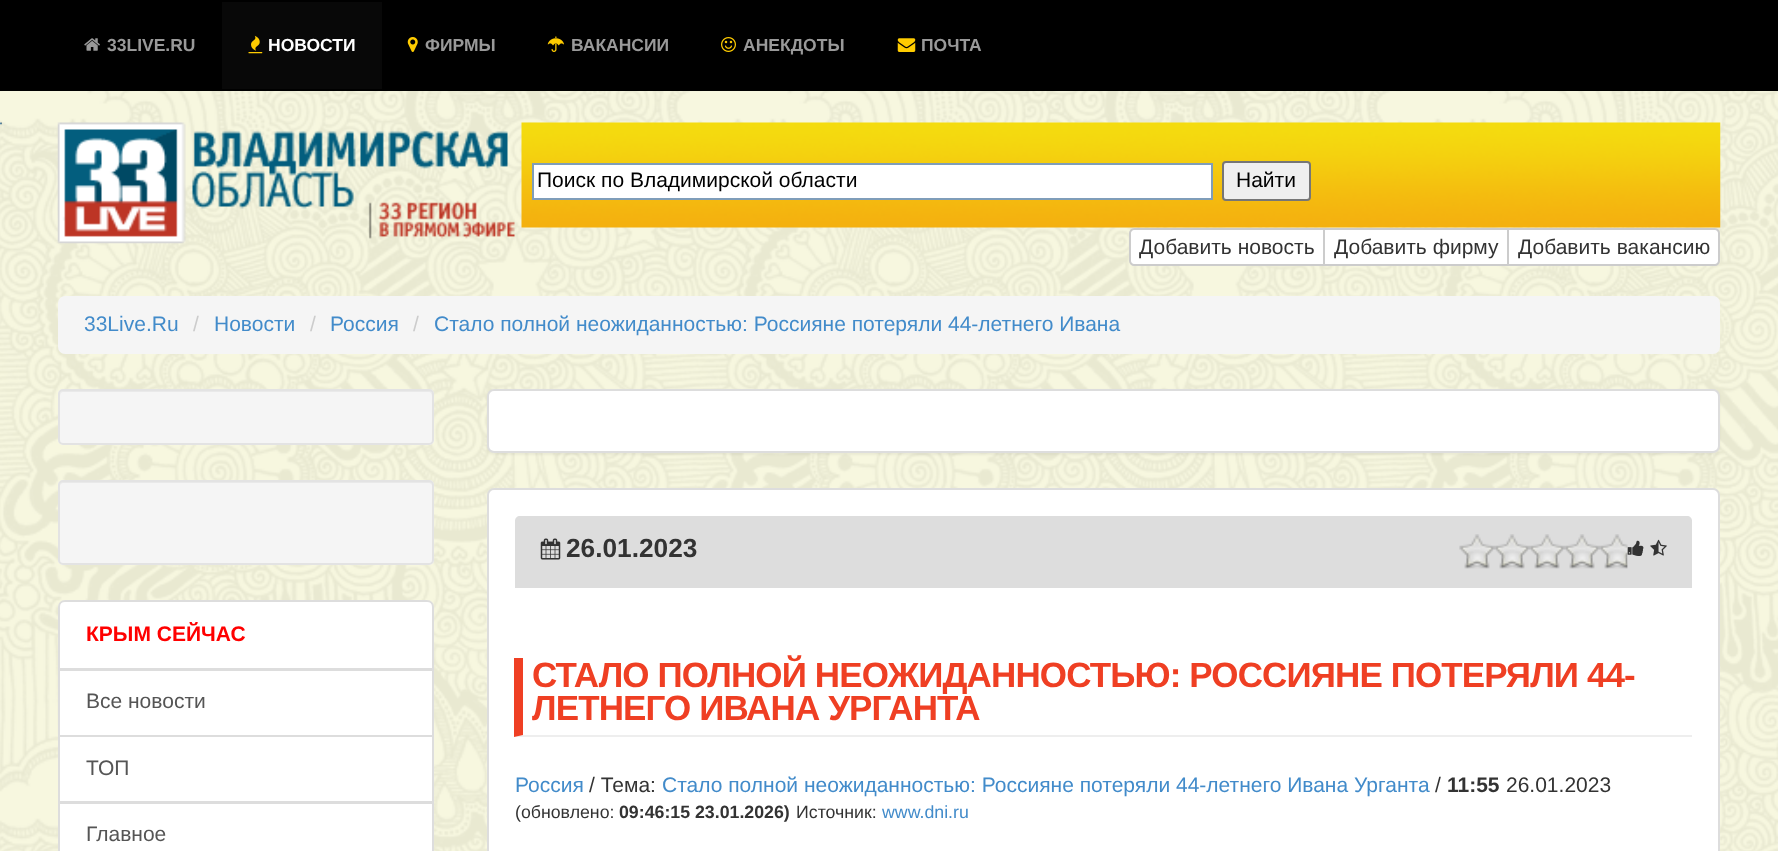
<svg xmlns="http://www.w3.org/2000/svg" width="1778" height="851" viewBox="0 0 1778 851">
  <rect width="100%" height="100%" fill="rgb(255,255,255)"/>
  <image x="0" y="91" width="1778" height="760" href="pic1.png"/>
  <rect x="0" y="0" width="1778" height="91" fill="rgb(0,0,0)"/>
  <image x="84" y="38" width="16" height="13" href="pic2.png"/>
  <text x="107" y="51" font-family="Liberation Sans" font-size="17.5" font-weight="bold" fill="rgb(153,153,153)">33LIVE.RU</text>
  <rect x="222" y="2" width="160" height="87" fill="rgb(8,8,8)"/>
  <image x="248" y="35" width="15" height="19" href="pic3.png"/>
  <text x="268" y="51" font-family="Liberation Sans" font-size="17.5" font-weight="bold" fill="rgb(255,255,255)">НОВОСТИ</text>
  <image x="407" y="37" width="11" height="15" href="pic4.png"/>
  <text x="425" y="51" font-family="Liberation Sans" font-size="17.5" font-weight="bold" fill="rgb(153,153,153)">ФИРМЫ</text>
  <image x="547" y="36" width="17" height="16" href="pic5.png"/>
  <text x="571" y="51" font-family="Liberation Sans" font-size="17.5" font-weight="bold" fill="rgb(153,153,153)">ВАКАНСИИ</text>
  <image x="721" y="37" width="15" height="15" href="pic6.png"/>
  <text x="743" y="51" font-family="Liberation Sans" font-size="17.5" font-weight="bold" fill="rgb(153,153,153)">АНЕКДОТЫ</text>
  <image x="897" y="38" width="19" height="14" href="pic7.png"/>
  <text x="921" y="51" font-family="Liberation Sans" font-size="17.5" font-weight="bold" fill="rgb(153,153,153)">ПОЧТА</text>
  <image x="0" y="122" width="2" height="3" href="pic8.png"/>
  <image x="57" y="122" width="458" height="122" href="pic9.png"/>
  <image x="521" y="122" width="1200" height="106" href="pic10.png"/>
  <rect x="533" y="164" width="679" height="35" fill="rgb(255,255,255)" stroke="rgb(127,157,185)" stroke-width="2"/>
  <text x="537" y="187" font-family="Liberation Sans" font-size="21" fill="rgb(0,0,0)">Поиск по Владимирской области</text>
  <rect x="1223" y="162" width="87" height="38" rx="3" fill="rgb(239,239,239)" stroke="rgb(118,118,118)" stroke-width="2"/>
  <text x="1236" y="187" font-family="Liberation Sans" font-size="21" fill="rgb(0,0,0)">Найти</text>
  <path d="M1134 229H1324V265H1134C1132 265 1130 263 1130 261V233C1130 231 1132 229 1134 229Z" fill="rgb(255,255,255)" stroke="rgb(204,204,204)" stroke-width="2"/>
  <text x="1139" y="254" font-family="Liberation Sans" font-size="21" fill="rgb(51,51,51)">Добавить новость</text>
  <rect x="1324" y="229" width="184" height="36" fill="rgb(255,255,255)" stroke="rgb(204,204,204)" stroke-width="2"/>
  <text x="1334" y="254" font-family="Liberation Sans" font-size="21" fill="rgb(51,51,51)">Добавить фирму</text>
  <path d="M1508 229H1715C1717 229 1719 231 1719 233V261C1719 263 1717 265 1715 265H1508Z" fill="rgb(255,255,255)" stroke="rgb(204,204,204)" stroke-width="2"/>
  <text x="1518" y="254" font-family="Liberation Sans" font-size="21" fill="rgb(51,51,51)">Добавить вакансию</text>
  <rect x="58" y="296" width="1662" height="58" rx="7" fill="rgb(245,245,245)"/>
  <text x="84" y="331" font-family="Liberation Sans" font-size="21" fill="rgb(66,139,202)">33Live.Ru</text>
  <text x="193" y="331" font-family="Liberation Sans" font-size="21" fill="rgb(204,204,204)">/</text>
  <text x="214" y="331" font-family="Liberation Sans" font-size="21" fill="rgb(66,139,202)">Новости</text>
  <text x="310" y="331" font-family="Liberation Sans" font-size="21" fill="rgb(204,204,204)">/</text>
  <text x="330" y="331" font-family="Liberation Sans" font-size="21" fill="rgb(66,139,202)">Россия</text>
  <text x="413" y="331" font-family="Liberation Sans" font-size="21" fill="rgb(204,204,204)">/</text>
  <text x="434" y="331" font-family="Liberation Sans" font-size="21" fill="rgb(66,139,202)">Стало полной неожиданностью: Россияне потеряли 44-летнего Ивана</text>
  <rect x="58" y="389" width="376" height="56" rx="5" fill="rgb(245,245,245)"/>
  <path d="M63 392H429C431 392 432 394 432 396V394C432 392 430 390 428 390H64C62 390 60 392 60 394V396C60 394 61 392 63 392Z" fill="rgb(233,233,233)"/>
  <rect x="59" y="390" width="374" height="54" rx="4" fill="none" stroke="rgb(227,227,227)" stroke-width="2"/>
  <rect x="58" y="480" width="376" height="85" rx="5" fill="rgb(245,245,245)"/>
  <path d="M63 483H429C431 483 432 485 432 486C432 483 431 481 428 481H64C61 481 60 483 60 486C60 485 61 483 63 483Z" fill="rgb(233,233,233)"/>
  <rect x="59" y="481" width="374" height="83" rx="4" fill="none" stroke="rgb(227,227,227)" stroke-width="2"/>
  <path d="M65 601H427C430.5 601 433 603.5 433 607V669H59V607C59 603.5 61.5 601 65 601Z" fill="rgb(255,255,255)" stroke="rgb(221,221,221)" stroke-width="2"/>
  <text x="86" y="641" font-family="Liberation Sans" font-size="21" font-weight="bold" fill="rgb(255,0,0)">КРЫМ СЕЙЧАС</text>
  <rect x="59" y="670" width="374" height="66" fill="rgb(255,255,255)" stroke="rgb(221,221,221)" stroke-width="2"/>
  <text x="86" y="708" font-family="Liberation Sans" font-size="21" fill="rgb(85,85,85)">Все новости</text>
  <rect x="59" y="736" width="374" height="66" fill="rgb(255,255,255)" stroke="rgb(221,221,221)" stroke-width="2"/>
  <text x="86" y="775" font-family="Liberation Sans" font-size="21" fill="rgb(85,85,85)">ТОП</text>
  <rect x="59" y="803" width="374" height="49" fill="rgb(255,255,255)" stroke="rgb(221,221,221)" stroke-width="2"/>
  <text x="86" y="841" font-family="Liberation Sans" font-size="21" fill="rgb(85,85,85)">Главное</text>
  <rect x="487" y="390" width="1233" height="65" rx="7" fill="rgba(0,0,0,0.05)" filter="blur(1px)"/>
  <rect x="488" y="390" width="1231" height="62" rx="6" fill="rgb(255,255,255)" stroke="rgb(221,221,221)" stroke-width="2"/>
  <rect x="488" y="489" width="1231" height="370" rx="6" fill="rgb(255,255,255)" stroke="rgb(221,221,221)" stroke-width="2"/>
  <path d="M520 516H1687C1690 516 1692 518 1692 521V588H515V521C515 518 517 516 520 516Z" fill="rgb(221,221,221)"/>
  <image x="540" y="538" width="21" height="22" href="pic11.png"/>
  <text x="566" y="557" font-family="Liberation Sans" font-size="26.25" font-weight="bold" fill="rgb(51,51,51)">26.01.2023</text>
  <image x="1627" y="540" width="17" height="16" href="pic13.png"/>
  <image x="1459" y="534" width="169" height="35" href="pic12.png"/>
  <image x="1650" y="539" width="17" height="17" href="pic14.png"/>
  <path d="M1692 737H514L523 735H1692Z" fill="rgb(238,238,238)"/>
  <path d="M514 737V658H523V735Z" fill="rgb(239,63,35)"/>
  <g font-family="Liberation Sans" font-size="35" font-weight="bold" letter-spacing="-0.88" fill="rgb(239,63,35)">
    <text>
      <tspan x="532" y="687">СТАЛО ПОЛНОЙ НЕОЖИДАННОСТЬЮ: РОССИЯНЕ ПОТЕРЯЛИ 44-</tspan>
      <tspan x="532" y="720">ЛЕТНЕГО ИВАНА УРГАНТА</tspan>
    </text>
  </g>
  <text x="515" y="792" font-family="Liberation Sans" font-size="21" fill="rgb(66,139,202)">Россия</text>
  <text x="589" y="792" font-family="Liberation Sans" font-size="21" fill="rgb(51,51,51)">/ Тема:</text>
  <text x="662" y="792" font-family="Liberation Sans" font-size="21" fill="rgb(66,139,202)">Стало полной неожиданностью: Россияне потеряли 44-летнего Ивана Урганта</text>
  <text x="1435" y="792" font-family="Liberation Sans" font-size="21" fill="rgb(51,51,51)">/</text>
  <text x="1447" y="792" font-family="Liberation Sans" font-size="21" font-weight="bold" fill="rgb(51,51,51)">11:55</text>
  <text x="1506" y="792" font-family="Liberation Sans" font-size="21" fill="rgb(51,51,51)">26.01.2023</text>
  <text x="515" y="818" font-family="Liberation Sans" font-size="17.75" fill="rgb(51,51,51)">(обновлено:</text>
  <text x="619" y="818" font-family="Liberation Sans" font-size="17.75" font-weight="bold" fill="rgb(51,51,51)">09:46:15 23.01.2026)</text>
  <text x="796" y="818" font-family="Liberation Sans" font-size="17.75" fill="rgb(51,51,51)">Источник:</text>
  <text x="882" y="818" font-family="Liberation Sans" font-size="17.75" fill="rgb(66,139,202)">www.dni.ru</text>
</svg>
